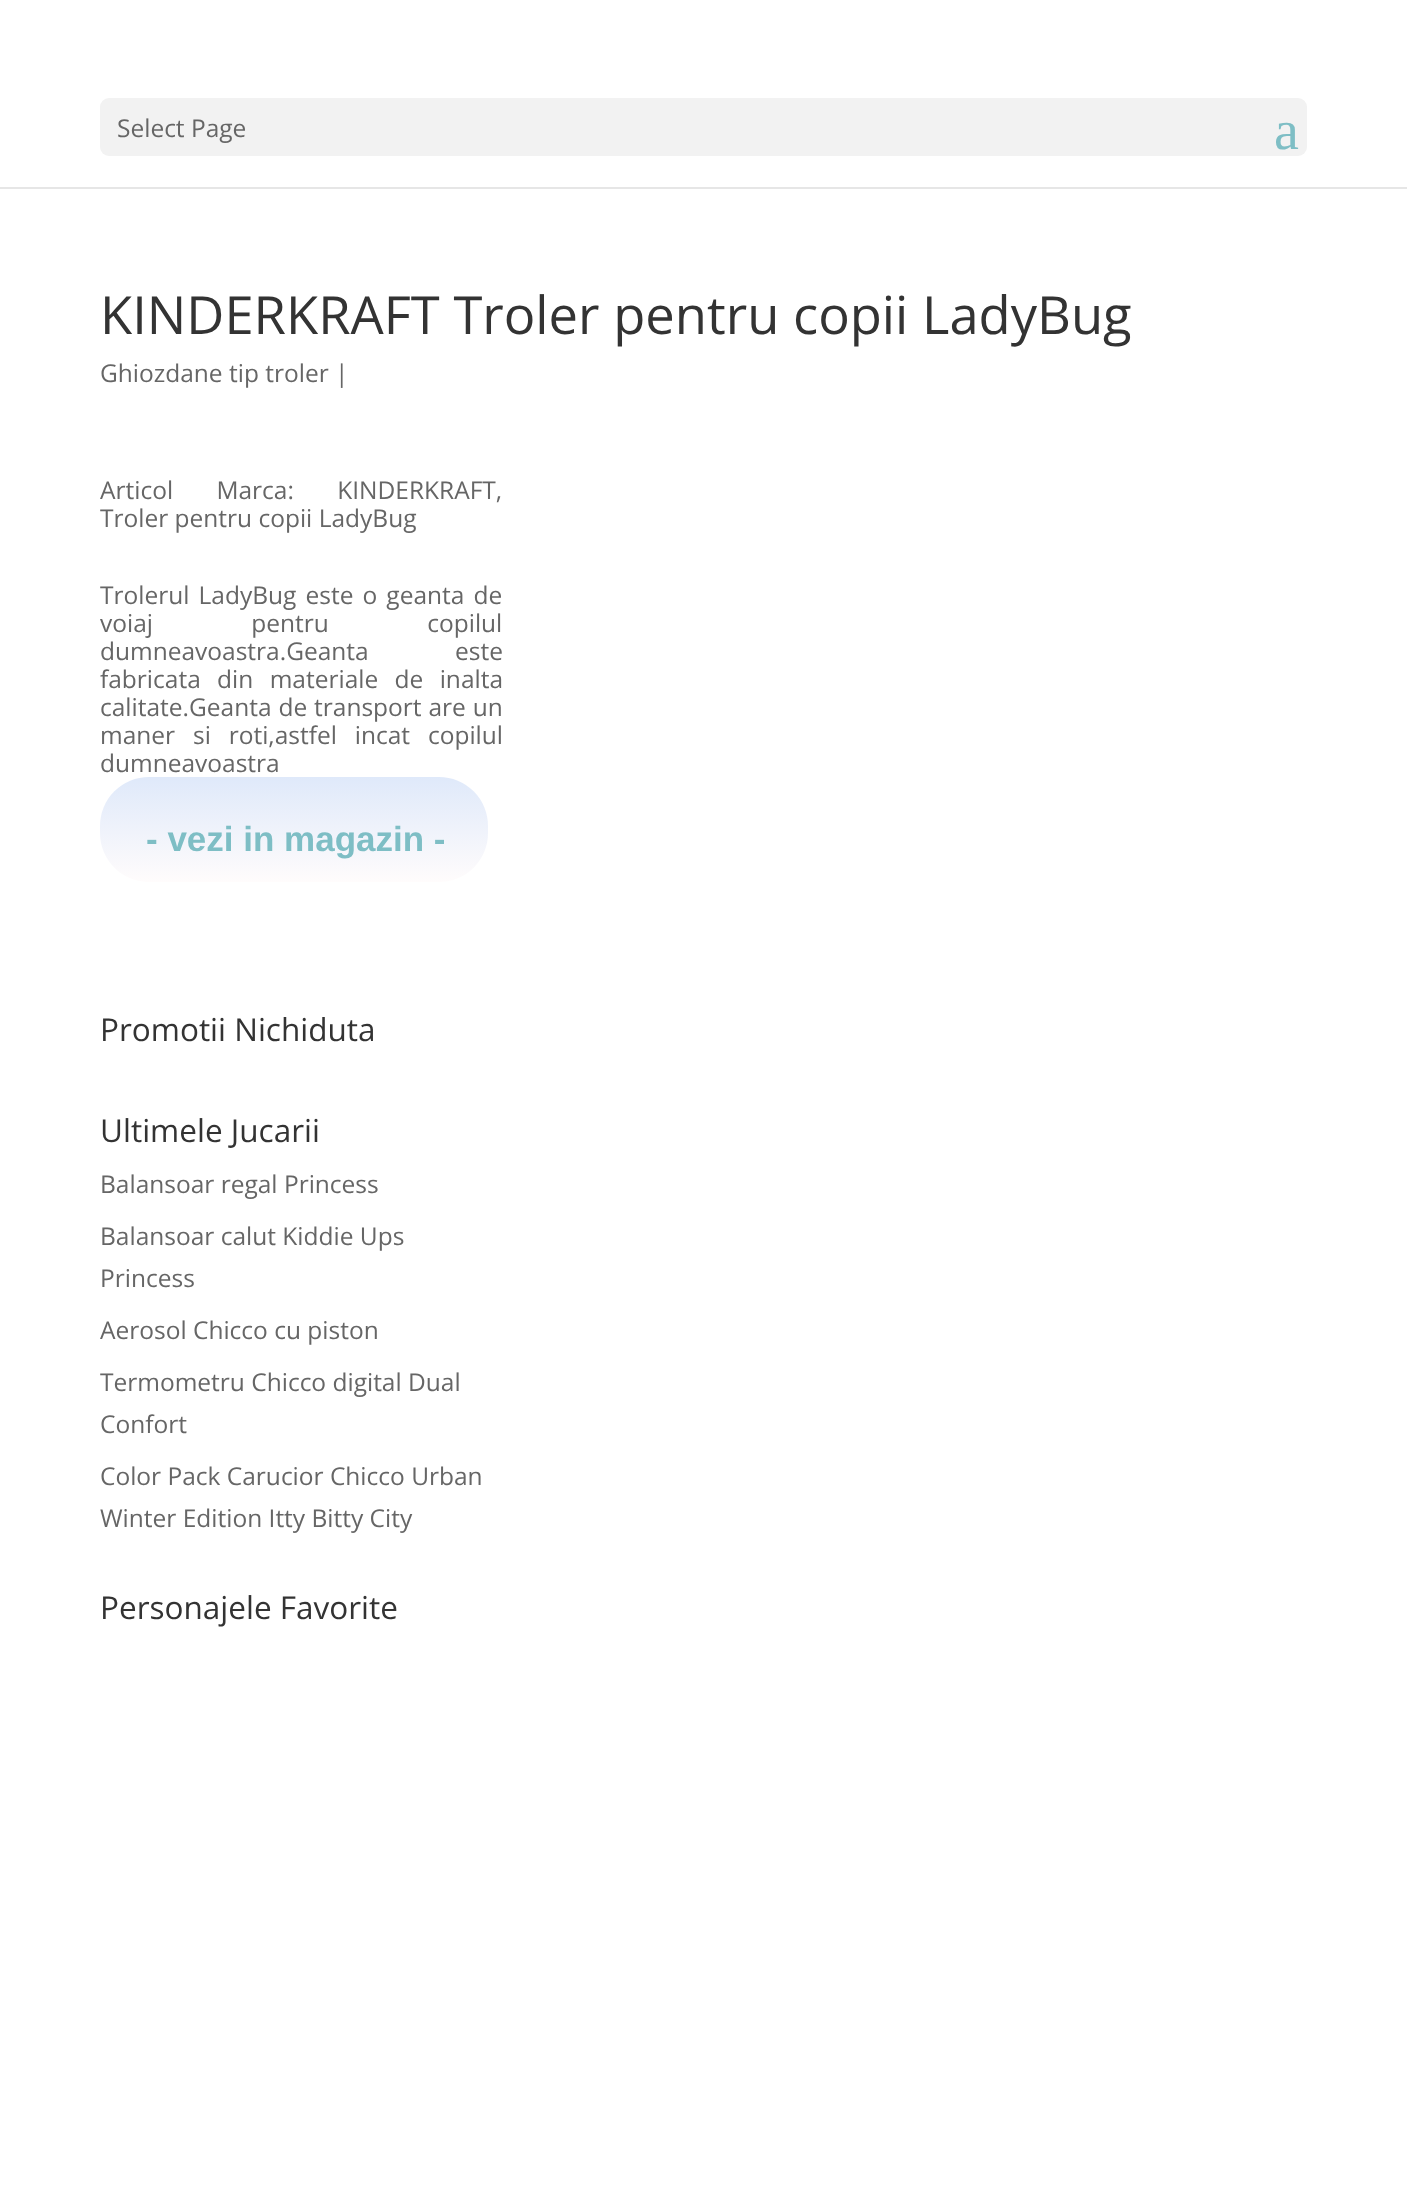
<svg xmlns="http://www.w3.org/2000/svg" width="1407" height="2196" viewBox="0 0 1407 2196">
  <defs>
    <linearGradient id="g1" gradientUnits="userSpaceOnUse" x1="294" y1="777" x2="294" y2="882"><stop offset="0" stop-color="rgb(223,233,250)"/><stop offset="1" stop-color="rgb(255,252,252)"/></linearGradient>
  </defs>
  <rect width="100%" height="100%" fill="rgb(255,255,255)"/>
  <rect x="0" y="187" width="1407" height="2" fill="rgb(230,230,230)"/>
  <rect x="100" y="98" width="1207" height="58" rx="9" fill="rgb(242,242,242)"/>
  <text x="117" y="137" font-family="Open Sans" font-size="24.5" fill="rgb(102,102,102)">Select Page</text>
  <text x="1274" y="149" font-family="Liberation Serif" font-size="56" fill="rgb(126,190,197)">a</text>
  <text x="100" y="334" font-family="Open Sans" font-size="52.5" fill="rgb(51,51,51)">KINDERKRAFT Troler pentru copii LadyBug</text>
  <g font-family="Open Sans" font-size="24.5" fill="rgb(102,102,102)">
    <text x="100" y="382">Ghiozdane tip troler |</text>
    <text>
      <tspan x="100" y="499" word-spacing="37">Articol Marca: KINDERKRAFT,</tspan>
      <tspan x="100" y="527">Troler pentru copii LadyBug</tspan>
    </text>
    <text>
      <tspan x="100" y="604" word-spacing="2.75">Trolerul LadyBug este o geanta de</tspan>
      <tspan x="100" y="632" word-spacing="92">voiaj pentru copilul</tspan>
      <tspan x="100" y="660" word-spacing="80">dumneavoastra.Geanta este</tspan>
      <tspan x="100" y="688" word-spacing="10">fabricata din materiale de inalta</tspan>
      <tspan x="100" y="716" word-spacing="0.5">calitate.Geanta de transport are un</tspan>
      <tspan x="100" y="744" word-spacing="11.5">maner si roti,astfel incat copilul</tspan>
      <tspan x="100" y="772">dumneavoastra</tspan>
    </text>
  </g>
  <rect x="100" y="777" width="388" height="105" rx="49" fill="url(#g1)"/>
  <text x="146" y="851" font-family="Liberation Sans" font-size="35" font-weight="bold" fill="rgb(126,190,197)">- vezi in magazin -</text>
  <g font-family="Open Sans" font-size="31.5" fill="rgb(51,51,51)">
    <text x="100" y="1041">Promotii Nichiduta</text>
    <text x="100" y="1142">Ultimele Jucarii</text>
  </g>
  <g font-family="Open Sans" font-size="24.5" fill="rgb(102,102,102)">
    <text x="100" y="1193">Balansoar regal Princess</text>
    <text>
      <tspan x="100" y="1245">Balansoar calut Kiddie Ups</tspan>
      <tspan x="100" y="1287">Princess</tspan>
    </text>
    <text x="100" y="1339">Aerosol Chicco cu piston</text>
    <text>
      <tspan x="100" y="1391">Termometru Chicco digital Dual</tspan>
      <tspan x="100" y="1433">Confort</tspan>
    </text>
    <text>
      <tspan x="100" y="1485">Color Pack Carucior Chicco Urban</tspan>
      <tspan x="100" y="1527">Winter Edition Itty Bitty City</tspan>
    </text>
  </g>
  <text x="100" y="1619" font-family="Open Sans" font-size="31.5" fill="rgb(51,51,51)">Personajele Favorite</text>
</svg>
